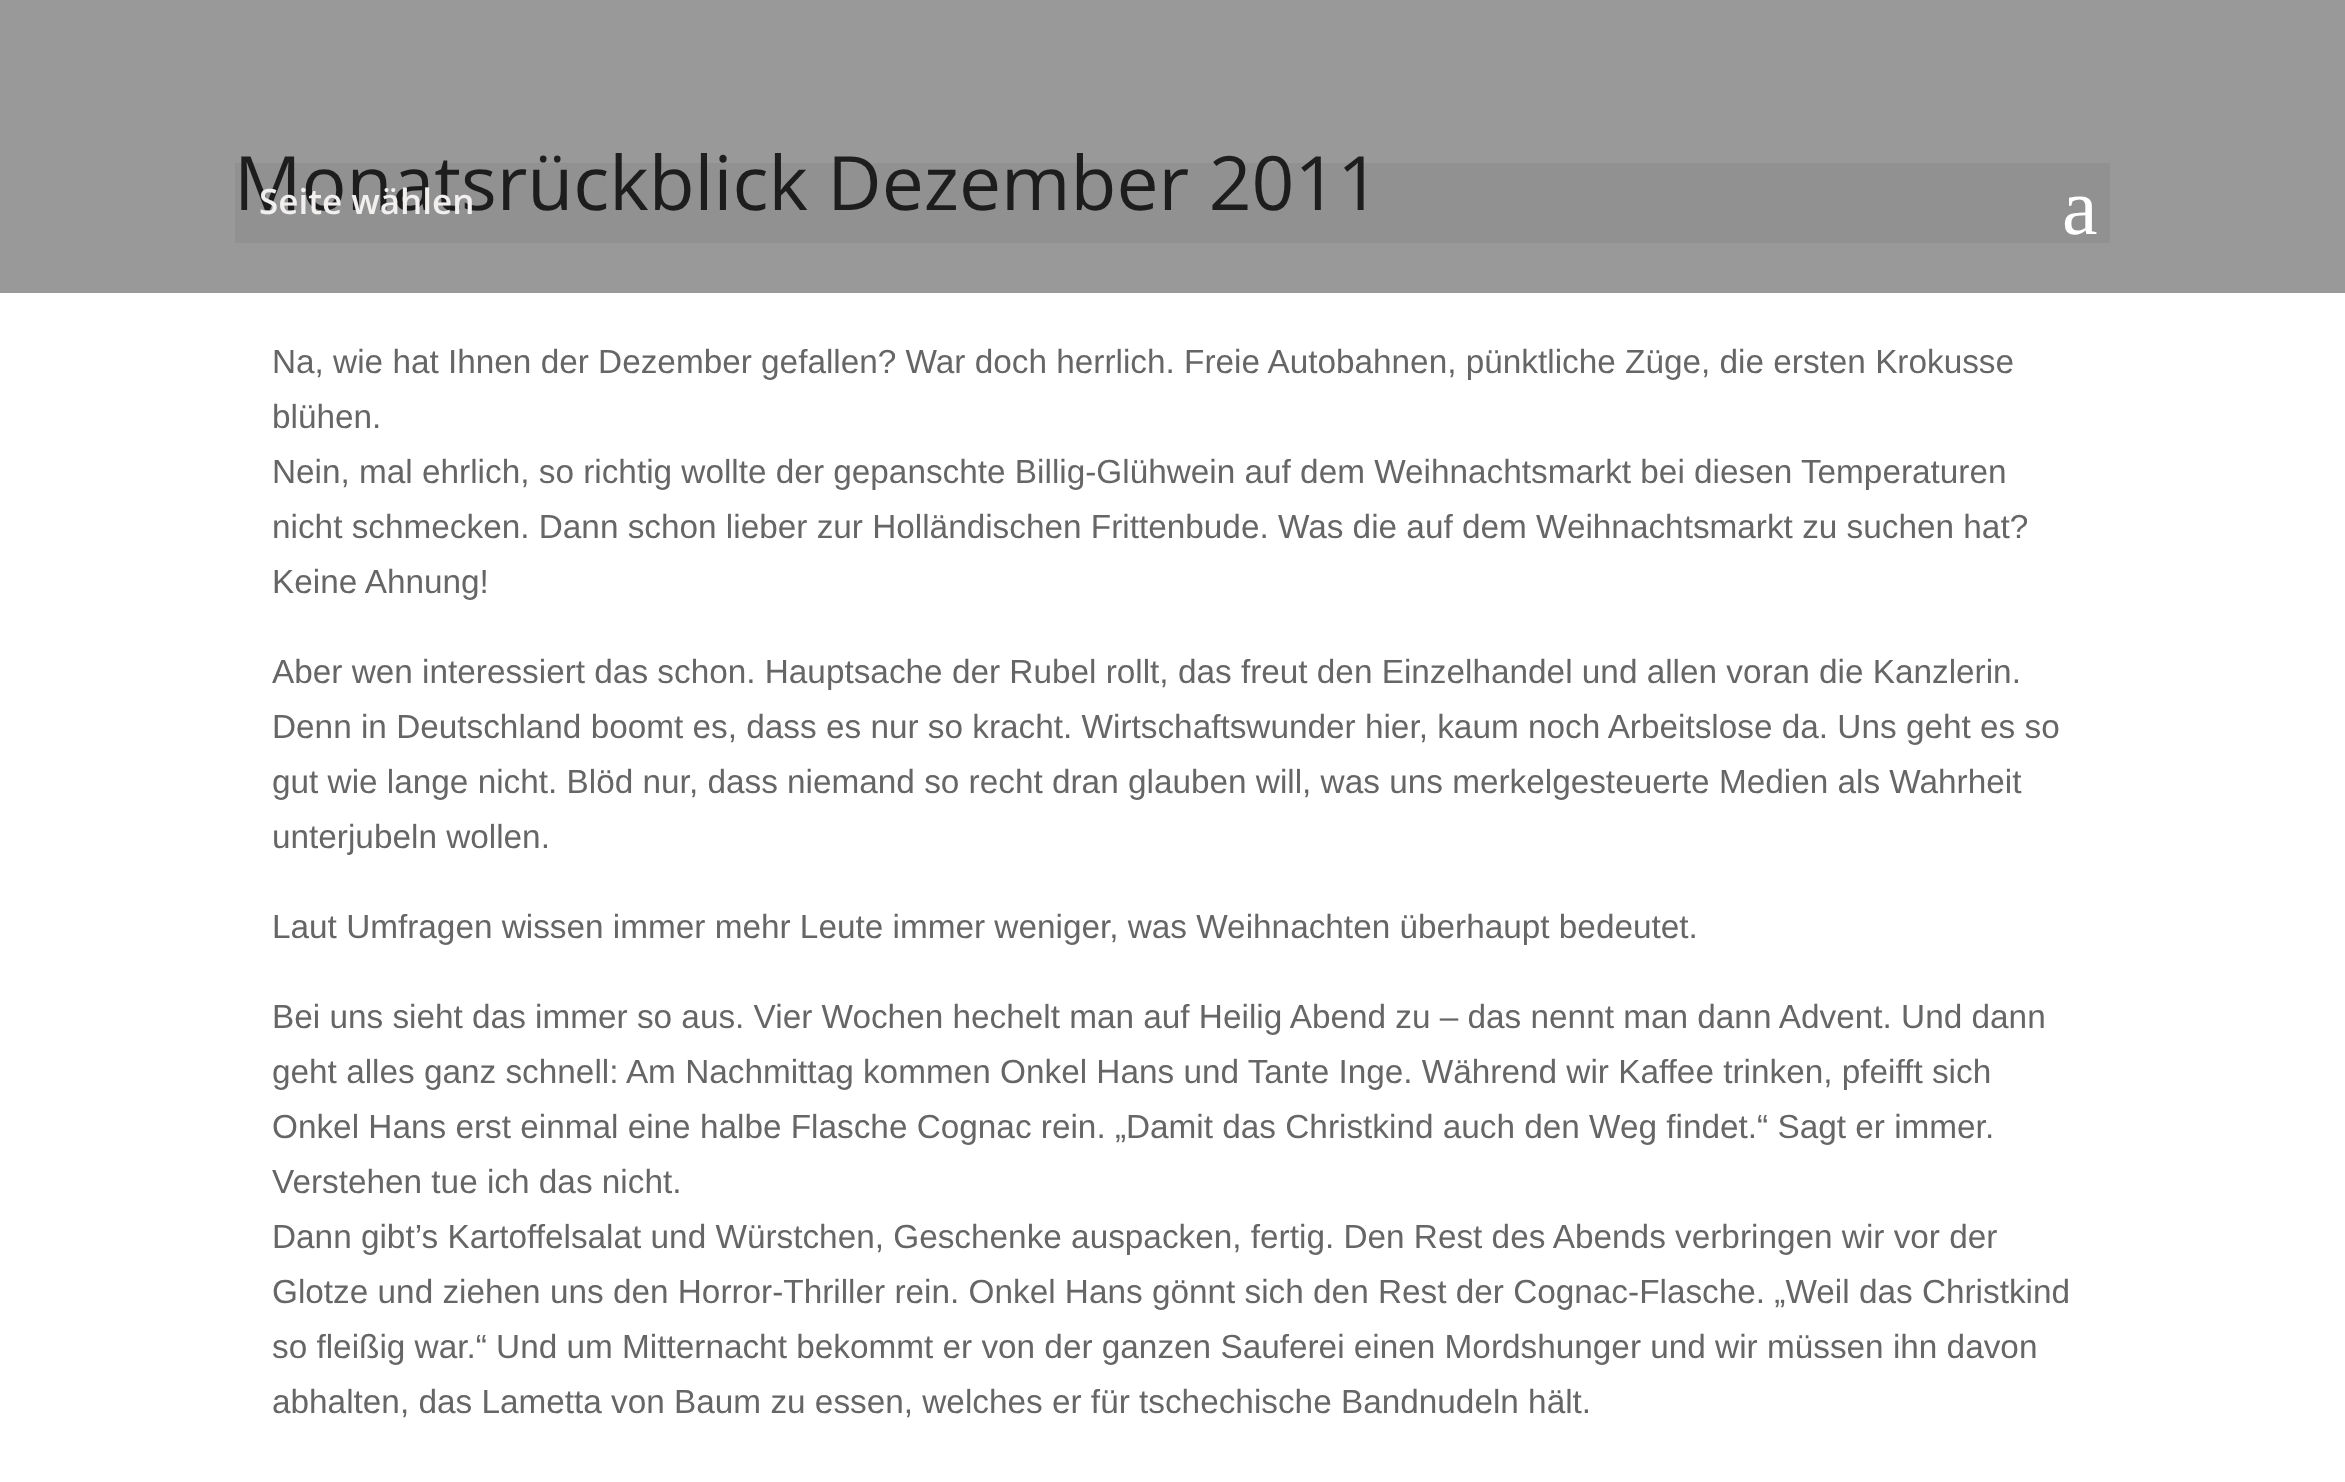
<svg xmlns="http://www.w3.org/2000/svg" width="2345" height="1482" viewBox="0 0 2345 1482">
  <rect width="100%" height="100%" fill="rgb(255,255,255)"/>
  <rect x="0" y="0" width="2345" height="293" fill="rgb(153,153,153)"/>
  <text x="234" y="210" font-family="Open Sans" font-size="75" fill="rgb(31,31,31)">Monatsrückblick Dezember 2011</text>
  <g font-family="Liberation Sans" font-size="33.33" fill="rgb(102,102,102)">
    <text>
      <tspan x="272" y="373">Na, wie hat Ihnen der Dezember gefallen? War doch herrlich. Freie Autobahnen, pünktliche Züge, die ersten Krokusse</tspan>
      <tspan x="272" y="428">blühen.</tspan>
      <tspan x="272" y="483">Nein, mal ehrlich, so richtig wollte der gepanschte Billig-Glühwein auf dem Weihnachtsmarkt bei diesen Temperaturen</tspan>
      <tspan x="272" y="538">nicht schmecken. Dann schon lieber zur Holländischen Frittenbude. Was die auf dem Weihnachtsmarkt zu suchen hat?</tspan>
      <tspan x="272" y="593">Keine Ahnung!</tspan>
    </text>
    <text>
      <tspan x="272" y="683">Aber wen interessiert das schon. Hauptsache der Rubel rollt, das freut den Einzelhandel und allen voran die Kanzlerin.</tspan>
      <tspan x="272" y="738">Denn in Deutschland boomt es, dass es nur so kracht. Wirtschaftswunder hier, kaum noch Arbeitslose da. Uns geht es so</tspan>
      <tspan x="272" y="793">gut wie lange nicht. Blöd nur, dass niemand so recht dran glauben will, was uns merkelgesteuerte Medien als Wahrheit</tspan>
      <tspan x="272" y="848">unterjubeln wollen.</tspan>
    </text>
    <text x="272" y="938">Laut Umfragen wissen immer mehr Leute immer weniger, was Weihnachten überhaupt bedeutet.</text>
    <text>
      <tspan x="272" y="1028">Bei uns sieht das immer so aus. Vier Wochen hechelt man auf Heilig Abend zu – das nennt man dann Advent. Und dann</tspan>
      <tspan x="272" y="1083">geht alles ganz schnell: Am Nachmittag kommen Onkel Hans und Tante Inge. Während wir Kaffee trinken, pfeifft sich</tspan>
      <tspan x="272" y="1138">Onkel Hans erst einmal eine halbe Flasche Cognac rein. „Damit das Christkind auch den Weg findet.“ Sagt er immer.</tspan>
      <tspan x="272" y="1193">Verstehen tue ich das nicht.</tspan>
      <tspan x="272" y="1248">Dann gibt’s Kartoffelsalat und Würstchen, Geschenke auspacken, fertig. Den Rest des Abends verbringen wir vor der</tspan>
      <tspan x="272" y="1303">Glotze und ziehen uns den Horror-Thriller rein. Onkel Hans gönnt sich den Rest der Cognac-Flasche. „Weil das Christkind</tspan>
      <tspan x="272" y="1358">so fleißig war.“ Und um Mitternacht bekommt er von der ganzen Sauferei einen Mordshunger und wir müssen ihn davon</tspan>
      <tspan x="272" y="1413">abhalten, das Lametta von Baum zu essen, welches er für tschechische Bandnudeln hält.</tspan>
    </text>
  </g>
  <rect x="235" y="163" width="1875" height="80" fill="rgba(0,0,0,0.05)"/>
  <text x="259" y="214" font-family="Open Sans" font-size="35" font-weight="600" fill="rgb(242,239,239)">Seite wählen</text>
  <text x="2062" y="234" font-family="Liberation Serif" font-size="80" fill="rgb(255,255,255)">a</text>
</svg>
